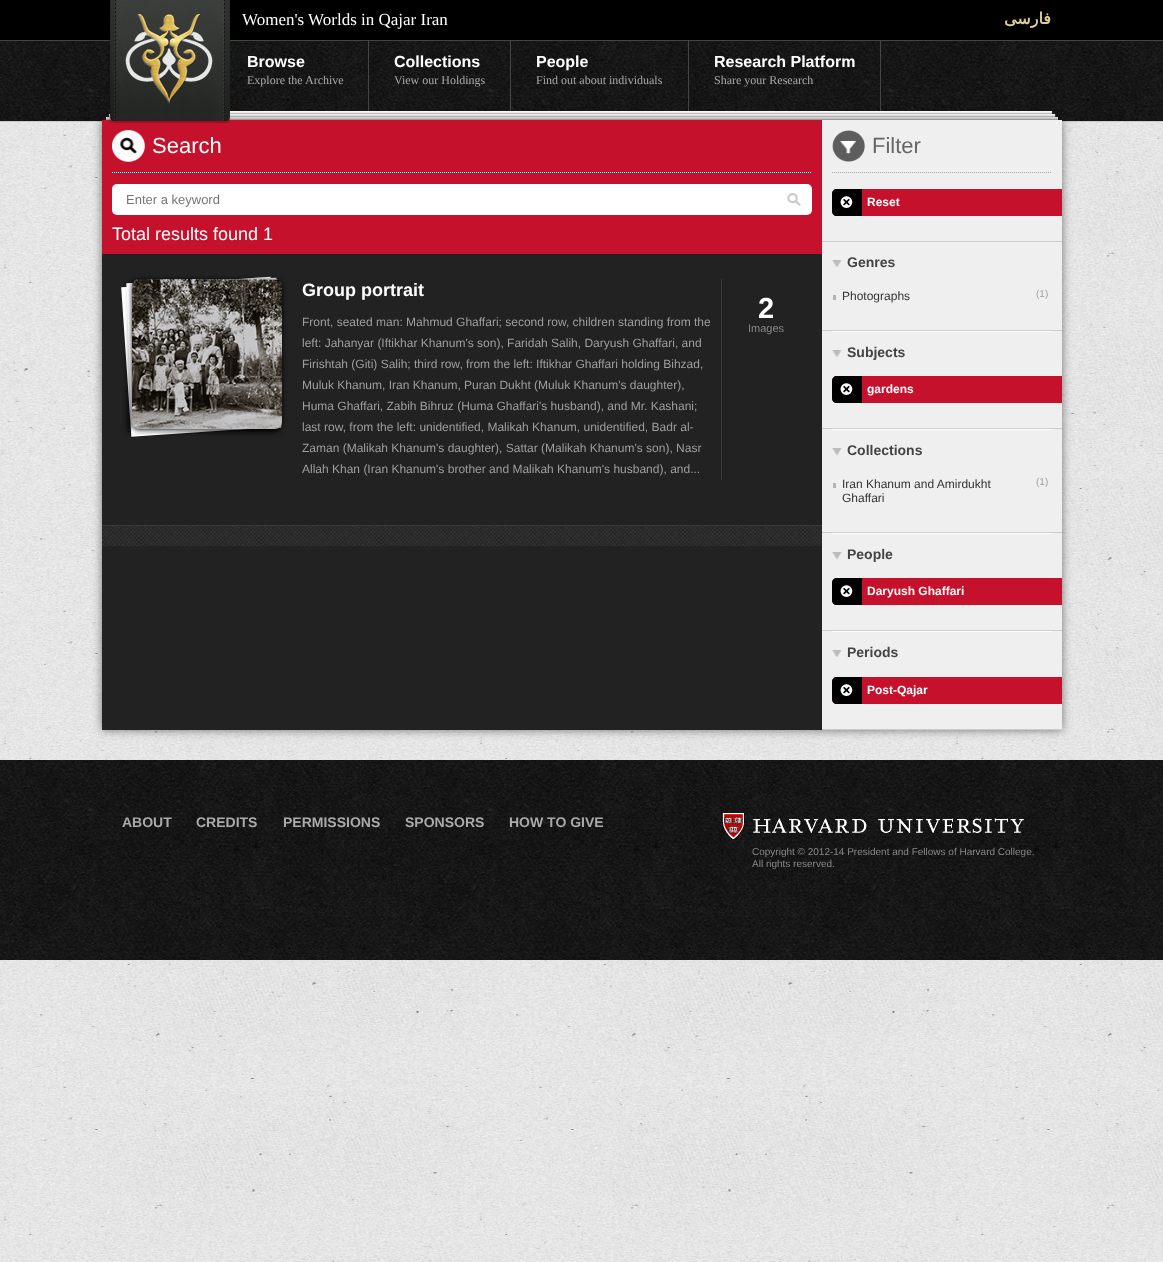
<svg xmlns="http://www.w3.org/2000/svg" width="1163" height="1262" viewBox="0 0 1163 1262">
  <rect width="100%" height="100%" fill="rgb(255,255,255)"/>
  <image x="0" y="122" width="1163" height="1140" href="pic1.png"/>
  <rect x="0" y="0" width="1163" height="40" fill="rgb(0,0,0)"/>
  <rect x="0" y="40" width="1163" height="1" fill="rgb(68,68,68)"/>
  <image x="0" y="41" width="1163" height="80" href="pic3.png"/>
  <rect x="0" y="121" width="1163" height="1" fill="rgb(207,202,196)"/>
  <rect x="368" y="41" width="1" height="70" fill="rgb(68,68,68)"/>
  <rect x="510" y="41" width="1" height="70" fill="rgb(68,68,68)"/>
  <rect x="688" y="41" width="1" height="70" fill="rgb(68,68,68)"/>
  <rect x="880" y="41" width="1" height="70" fill="rgb(68,68,68)"/>
  <image x="229" y="110" width="823" height="10" href="pic4.png"/>
  <image x="106" y="114" width="5" height="6" href="pic5.png"/>
  <image x="1052" y="111" width="9" height="9" href="pic6.png"/>
  <rect x="102" y="120" width="960" height="610" fill="rgba(0,0,0,0.5)" filter="blur(5px)"/>
  <rect x="102" y="120" width="720" height="134" fill="rgb(197,17,44)"/>
  <image x="107" y="0" width="123" height="123" href="pic2.png"/>
  <text x="242" y="25" font-family="Liberation Serif" font-size="17" fill="rgb(255,255,255)">Women's Worlds in Qajar Iran</text>
  <text x="1051" y="24" font-family="DejaVu Sans" font-size="16" font-weight="bold" direction="rtl" fill="rgb(222,204,157)">فارسی</text>
  <text x="247" y="67" font-family="Liberation Sans" font-size="16" font-weight="bold" fill="rgb(255,255,255)">Browse</text>
  <text x="247" y="84" font-family="Liberation Serif" font-size="12" fill="rgb(170,170,170)">Explore the Archive</text>
  <text x="394" y="67" font-family="Liberation Sans" font-size="16" font-weight="bold" fill="rgb(255,255,255)">Collections</text>
  <text x="394" y="84" font-family="Liberation Serif" font-size="12" fill="rgb(170,170,170)">View our Holdings</text>
  <text x="536" y="67" font-family="Liberation Sans" font-size="16" font-weight="bold" fill="rgb(255,255,255)">People</text>
  <text x="536" y="84" font-family="Liberation Serif" font-size="12" fill="rgb(170,170,170)">Find out about individuals</text>
  <text x="714" y="67" font-family="Liberation Sans" font-size="16" font-weight="bold" fill="rgb(255,255,255)">Research Platform</text>
  <text x="714" y="84" font-family="Liberation Serif" font-size="12" fill="rgb(170,170,170)">Share your Research</text>
  <rect x="102" y="254" width="720" height="476" fill="rgb(34,34,34)"/>
  <rect x="822" y="120" width="240" height="609" fill="rgb(239,239,239)"/>
  <image x="112" y="130" width="33" height="32" href="pic7.png"/>
  <path d="M112 172.5H812" fill="none" stroke="rgb(255,255,255)" stroke-dasharray="1 1"/>
  <text x="152" y="153" font-family="Liberation Sans" font-size="22" fill="rgb(255,255,255)">Search</text>
  <rect x="112" y="184" width="700" height="31" rx="5" fill="rgb(255,255,255)"/>
  <text x="126" y="204" font-family="Liberation Sans" font-size="13" fill="rgb(117,117,117)">Enter a keyword</text>
  <image x="787" y="193" width="14" height="13" href="pic8.png"/>
  <text x="112" y="240" font-family="Liberation Sans" font-size="18" fill="rgb(255,255,255)">Total results found 1</text>
  <rect x="102" y="525" width="720" height="1" fill="rgb(57,57,57)"/>
  <rect x="126" y="283" width="150" height="150" rx="3" fill="rgba(0,0,0,0.4)" filter="blur(2px)"/>
  <path d="M126.5 292L266 282L276 422L136 431.5Z" fill="none" stroke="rgb(255,255,255)" stroke-width="10"/>
  <rect x="129" y="281" width="150" height="150" rx="3" fill="rgba(0,0,0,0.4)" filter="blur(2px)"/>
  <path d="M131.5 288L271.5 283L276 423L136.5 428Z" fill="none" stroke="rgb(255,255,255)" stroke-width="10"/>
  <rect x="132" y="280" width="150" height="150" rx="7" fill="rgba(0,0,0,0.9)" filter="blur(2.5px)"/>
  <image x="132" y="279" width="150" height="150" href="pic9.png"/>
  <rect x="721" y="279" width="1" height="201" fill="rgb(57,57,57)"/>
  <text x="302" y="296" font-family="Liberation Sans" font-size="18" font-weight="bold" fill="rgb(255,255,255)">Group portrait</text>
  <g font-family="Liberation Sans" font-size="12" fill="rgb(158,158,158)">
    <text>
      <tspan x="302" y="326">Front, seated man: Mahmud Ghaffari; second row, children standing from the</tspan>
      <tspan x="302" y="347">left: Jahanyar (Iftikhar Khanum's son), Faridah Salih, Daryush Ghaffari, and</tspan>
      <tspan x="302" y="368">Firishtah (Giti) Salih; third row, from the left: Iftikhar Ghaffari holding Bihzad,</tspan>
      <tspan x="302" y="389">Muluk Khanum, Iran Khanum, Puran Dukht (Muluk Khanum's daughter),</tspan>
      <tspan x="302" y="410">Huma Ghaffari, Zabih Bihruz (Huma Ghaffari's husband), and Mr. Kashani;</tspan>
      <tspan x="302" y="431">last row, from the left: unidentified, Malikah Khanum, unidentified, Badr al-</tspan>
      <tspan x="302" y="452">Zaman (Malikah Khanum's daughter), Sattar (Malikah Khanum's son), Nasr</tspan>
      <tspan x="302" y="473">Allah Khan (Iran Khanum's brother and Malikah Khanum's husband), and...</tspan>
    </text>
  </g>
  <text x="758" y="318" font-family="Liberation Sans" font-size="29" font-weight="bold" fill="rgb(255,255,255)">2</text>
  <text x="748" y="332" font-family="Liberation Sans" font-size="11" fill="rgb(136,136,136)">Images</text>
  <image x="102" y="526" width="720" height="20" href="pic10.png"/>
  <image x="832" y="130" width="33" height="32" href="pic11.png"/>
  <path d="M832 172.5H1052" fill="none" stroke="rgb(170,170,170)" stroke-dasharray="1 1"/>
  <text x="872" y="153" font-family="Liberation Sans" font-size="22" fill="rgb(102,102,102)">Filter</text>
  <rect x="822" y="241" width="240" height="1" fill="rgb(204,204,204)"/>
  <path d="M837 189H1062V216H837C834 216 832 214 832 211V194C832 191 834 189 837 189Z" fill="rgb(197,17,44)"/>
  <path d="M837 189H862V216H837C834 216 832 214 832 211V194C832 191 834 189 837 189Z" fill="rgb(0,0,0)"/>
  <text x="840" y="206" font-family="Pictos" font-size="14" fill="rgb(255,255,255)">D</text>
  <text x="867" y="206" font-family="Liberation Sans" font-size="12" font-weight="bold" fill="rgb(255,255,255)">Reset</text>
  <image x="832" y="260" width="10" height="7" href="pic12.png"/>
  <text x="847" y="267" font-family="Liberation Sans" font-size="14" font-weight="bold" fill="rgb(68,68,68)">Genres</text>
  <rect x="822" y="330" width="240" height="1" fill="rgb(204,204,204)"/>
  <rect x="833" y="295" width="3" height="5" fill="rgb(180,180,180)"/>
  <text x="842" y="300" font-family="Liberation Sans" font-size="12" fill="rgb(51,51,51)">Photographs</text>
  <text x="1036" y="297" font-family="Liberation Sans" font-size="10" fill="rgb(158,158,158)">(1)</text>
  <image x="832" y="350" width="10" height="7" href="pic12.png"/>
  <rect x="832" y="331" width="220" height="1" fill="rgb(255,255,255)"/>
  <text x="847" y="357" font-family="Liberation Sans" font-size="14" font-weight="bold" fill="rgb(68,68,68)">Subjects</text>
  <rect x="822" y="428" width="240" height="1" fill="rgb(204,204,204)"/>
  <path d="M837 376H1062V403H837C834 403 832 401 832 398V381C832 378 834 376 837 376Z" fill="rgb(197,17,44)"/>
  <path d="M837 376H862V403H837C834 403 832 401 832 398V381C832 378 834 376 837 376Z" fill="rgb(0,0,0)"/>
  <text x="840" y="393" font-family="Pictos" font-size="14" fill="rgb(255,255,255)">D</text>
  <text x="867" y="393" font-family="Liberation Sans" font-size="12" font-weight="bold" fill="rgb(255,255,255)">gardens</text>
  <image x="832" y="448" width="10" height="7" href="pic12.png"/>
  <rect x="832" y="429" width="220" height="1" fill="rgb(255,255,255)"/>
  <text x="847" y="455" font-family="Liberation Sans" font-size="14" font-weight="bold" fill="rgb(68,68,68)">Collections</text>
  <rect x="822" y="532" width="240" height="1" fill="rgb(204,204,204)"/>
  <rect x="833" y="483" width="3" height="5" fill="rgb(180,180,180)"/>
  <text x="842" y="488" font-family="Liberation Sans" font-size="12" fill="rgb(51,51,51)">Iran Khanum and Amirdukht</text>
  <text x="1036" y="485" font-family="Liberation Sans" font-size="10" fill="rgb(158,158,158)">(1)</text>
  <text x="842" y="502" font-family="Liberation Sans" font-size="12" fill="rgb(51,51,51)">Ghaffari</text>
  <image x="832" y="552" width="10" height="7" href="pic12.png"/>
  <rect x="832" y="533" width="220" height="1" fill="rgb(255,255,255)"/>
  <text x="847" y="559" font-family="Liberation Sans" font-size="14" font-weight="bold" fill="rgb(68,68,68)">People</text>
  <rect x="822" y="630" width="240" height="1" fill="rgb(204,204,204)"/>
  <path d="M837 578H1062V605H837C834 605 832 603 832 600V583C832 580 834 578 837 578Z" fill="rgb(197,17,44)"/>
  <path d="M837 578H862V605H837C834 605 832 603 832 600V583C832 580 834 578 837 578Z" fill="rgb(0,0,0)"/>
  <text x="840" y="595" font-family="Pictos" font-size="14" fill="rgb(255,255,255)">D</text>
  <text x="867" y="595" font-family="Liberation Sans" font-size="12" font-weight="bold" fill="rgb(255,255,255)">Daryush Ghaffari</text>
  <image x="832" y="650" width="10" height="7" href="pic12.png"/>
  <rect x="832" y="631" width="220" height="1" fill="rgb(255,255,255)"/>
  <text x="847" y="657" font-family="Liberation Sans" font-size="14" font-weight="bold" fill="rgb(68,68,68)">Periods</text>
  <rect x="822" y="729" width="240" height="1" fill="rgb(204,204,204)"/>
  <path d="M837 677H1062V704H837C834 704 832 702 832 699V682C832 679 834 677 837 677Z" fill="rgb(197,17,44)"/>
  <path d="M837 677H862V704H837C834 704 832 702 832 699V682C832 679 834 677 837 677Z" fill="rgb(0,0,0)"/>
  <text x="840" y="694" font-family="Pictos" font-size="14" fill="rgb(255,255,255)">D</text>
  <text x="867" y="694" font-family="Liberation Sans" font-size="12" font-weight="bold" fill="rgb(255,255,255)">Post-Qajar</text>
  <image x="0" y="760" width="1163" height="200" href="pic13.png"/>
  <g font-family="Liberation Sans" font-size="14" font-weight="bold" fill="rgb(170,170,170)">
    <text x="122" y="827">ABOUT</text>
    <text x="196" y="827">CREDITS</text>
    <text x="283" y="827">PERMISSIONS</text>
    <text x="405" y="827">SPONSORS</text>
    <text x="509" y="827">HOW TO GIVE</text>
  </g>
  <image x="722" y="813" width="302" height="27" href="pic14.png"/>
  <g font-family="Liberation Sans" font-size="10" fill="rgb(136,136,136)">
    <text>
      <tspan x="752" y="855">Copyright © 2012-14 President and Fellows of Harvard College.</tspan>
      <tspan x="752" y="867">All rights reserved.</tspan>
    </text>
  </g>
</svg>
